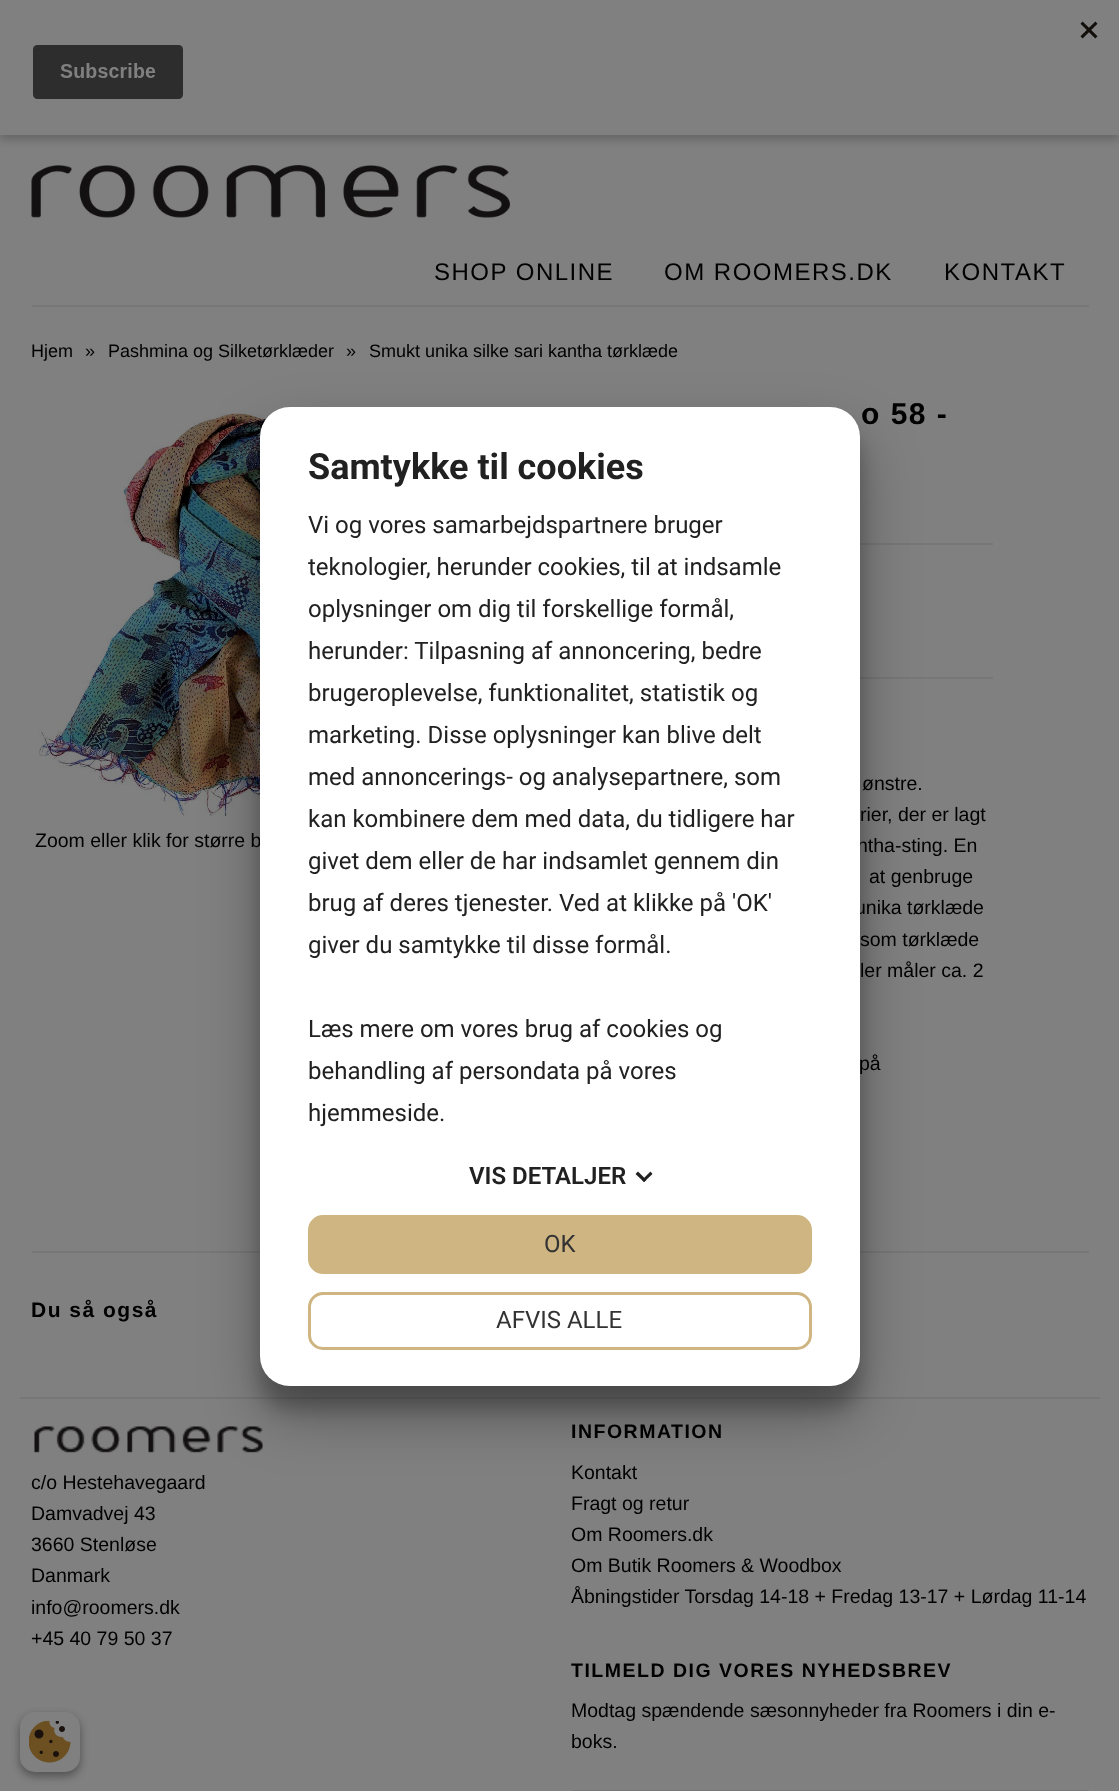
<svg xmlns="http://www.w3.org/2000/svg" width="1119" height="1791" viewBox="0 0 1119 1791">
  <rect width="100%" height="100%" fill="rgb(128,128,128)"/>
  <rect x="0" y="5" width="1119" height="135" fill="rgba(0,0,0,0.2)" filter="blur(4.5px)"/>
  <rect x="0" y="0" width="1119" height="135" fill="rgb(128,128,128)"/>
  <image x="32" y="21" width="1066" height="78" href="pic1.png"/>
  <image x="31" y="165" width="479" height="53" href="pic2.png"/>
  <g font-family="Liberation Sans" font-size="24" letter-spacing="1.5" fill="rgb(0,0,0)">
    <text x="434" y="280">SHOP ONLINE</text>
    <text x="664" y="280">OM ROOMERS.DK</text>
    <text x="944" y="280">KONTAKT</text>
  </g>
  <rect x="32" y="305" width="1057" height="2" fill="rgb(119,119,119)"/>
  <g font-family="Liberation Sans" font-size="18" fill="rgb(0,0,0)">
    <text x="31" y="357">Hjem</text>
    <text x="85" y="357">»</text>
    <text x="108" y="357">Pashmina og Silketørklæder</text>
    <text x="346" y="357">»</text>
    <text x="369" y="357">Smukt unika silke sari kantha tørklæde</text>
  </g>
  <image x="39" y="413" width="233" height="403" href="pic3.png"/>
  <text x="35" y="847" font-family="Liberation Sans" font-size="19.5" fill="rgb(0,0,0)">Zoom eller klik for større b</text>
  <text x="861" y="424" font-family="Liberation Sans" font-size="30" font-weight="bold" letter-spacing="1.5" fill="rgb(0,0,0)">o 58 -</text>
  <rect x="860" y="543" width="133" height="2" fill="rgb(119,119,119)"/>
  <rect x="860" y="677" width="133" height="2" fill="rgb(119,119,119)"/>
  <g font-family="Liberation Sans" font-size="19.5" fill="rgb(0,0,0)">
    <text x="862" y="790">ønstre.</text>
    <text x="860" y="821">rier, der er lagt</text>
    <text x="857" y="852">ntha-sting. En</text>
    <text x="869" y="883">at genbruge</text>
    <text x="855" y="914">unika tørklæde</text>
    <text>
      <tspan x="860" y="946">som tørklæde</tspan>
      <tspan x="860" y="977">ler måler ca. 2</tspan>
    </text>
    <text x="859" y="1070">på</text>
  </g>
  <rect x="32" y="1251" width="1057" height="2" fill="rgb(119,119,119)"/>
  <text x="31" y="1317" font-family="Liberation Sans" font-size="21" font-weight="bold" letter-spacing="1.5" fill="rgb(0,0,0)">Du så også</text>
  <rect x="20" y="1397" width="1080" height="2" fill="rgb(119,119,119)"/>
  <image x="34" y="1426" width="229" height="27" href="pic4.png"/>
  <g font-family="Liberation Sans" font-size="19.5" fill="rgb(0,0,0)">
    <text>
      <tspan x="31" y="1489">c/o Hestehavegaard</tspan>
      <tspan x="31" y="1520">Damvadvej 43</tspan>
      <tspan x="31" y="1551">3660 Stenløse</tspan>
      <tspan x="31" y="1582">Danmark</tspan>
      <tspan x="31" y="1614">info@roomers.dk</tspan>
      <tspan x="31" y="1645">+45 40 79 50 37</tspan>
    </text>
  </g>
  <text x="571" y="1438" font-family="Liberation Sans" font-size="19.5" font-weight="bold" letter-spacing="1.5" fill="rgb(0,0,0)">INFORMATION</text>
  <g font-family="Liberation Sans" font-size="19.5" fill="rgb(0,0,0)">
    <text>
      <tspan x="571" y="1479">Kontakt</tspan>
      <tspan x="571" y="1510">Fragt og retur</tspan>
      <tspan x="571" y="1541">Om Roomers.dk</tspan>
      <tspan x="571" y="1572">Om Butik Roomers &amp; Woodbox</tspan>
      <tspan x="571" y="1603">Åbningstider Torsdag 14-18 + Fredag 13-17 + Lørdag 11-14</tspan>
    </text>
  </g>
  <text x="571" y="1677" font-family="Liberation Sans" font-size="19.5" font-weight="bold" letter-spacing="1.5" fill="rgb(0,0,0)">TILMELD DIG VORES NYHEDSBREV</text>
  <g font-family="Liberation Sans" font-size="19.5" fill="rgb(0,0,0)">
    <text>
      <tspan x="571" y="1717">Modtag spændende sæsonnyheder fra Roomers i din e-</tspan>
      <tspan x="571" y="1748">boks.</tspan>
    </text>
  </g>
  <rect x="573" y="1791" width="515" height="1" fill="none" stroke="rgb(119,119,119)" stroke-width="2"/>
  <rect x="260" y="429" width="600" height="980" rx="30" fill="rgba(0,0,0,0.22)" filter="blur(9px)"/>
  <rect x="260" y="435" width="600" height="980" rx="30" fill="rgba(0,0,0,0.3)" filter="blur(28.5px)"/>
  <rect x="260" y="407" width="600" height="979" rx="30" fill="rgb(255,255,255)"/>
  <text x="308" y="479" font-family="Roboto" font-size="36" font-weight="bold" fill="rgb(33,33,33)">Samtykke til cookies</text>
  <g font-family="Roboto" font-size="24" fill="rgb(33,33,33)">
    <text>
      <tspan x="308" y="533">Vi og vores samarbejdspartnere bruger</tspan>
      <tspan x="308" y="575">teknologier, herunder cookies, til at indsamle</tspan>
      <tspan x="308" y="617">oplysninger om dig til forskellige formål,</tspan>
      <tspan x="308" y="659">herunder: Tilpasning af annoncering, bedre</tspan>
      <tspan x="308" y="701">brugeroplevelse, funktionalitet, statistik og</tspan>
      <tspan x="308" y="743">marketing. Disse oplysninger kan blive delt</tspan>
      <tspan x="308" y="785">med annoncerings- og analysepartnere, som</tspan>
      <tspan x="308" y="827">kan kombinere dem med data, du tidligere har</tspan>
      <tspan x="308" y="869">givet dem eller de har indsamlet gennem din</tspan>
      <tspan x="308" y="911">brug af deres tjenester. Ved at klikke på 'OK'</tspan>
      <tspan x="308" y="953">giver du samtykke til disse formål.</tspan>
    </text>
    <text>
      <tspan x="308" y="1037">Læs mere om vores brug af cookies og</tspan>
      <tspan x="308" y="1079">behandling af persondata på vores</tspan>
      <tspan x="308" y="1121">hjemmeside.</tspan>
    </text>
  </g>
  <text x="469" y="1184" font-family="Roboto" font-size="24" font-weight="600" fill="rgb(33,33,33)">VIS DETALJER</text>
  <path d="M650.5 1171.5L652.5 1174L644 1182L642 1180Z" fill="rgb(33,33,33)"/>
  <path d="M638 1171.5L646.5 1180L644 1182L635.5 1174Z" fill="rgb(33,33,33)"/>
  <rect x="309.5" y="1216.5" width="501" height="56" rx="13.5" fill="rgb(206,181,130)" stroke="rgb(206,181,130)" stroke-width="3"/>
  <text x="544" y="1252" font-family="Roboto" font-size="24" fill="rgb(51,51,51)">OK</text>
  <rect x="309.5" y="1293.5" width="501" height="55" rx="13.5" fill="none" stroke="rgb(206,181,130)" stroke-width="3"/>
  <text x="496" y="1328" font-family="Roboto" font-size="24" fill="rgb(51,51,51)">AFVIS ALLE</text>
  <rect x="20" y="1716" width="60" height="60" rx="15" fill="rgba(0,0,0,0.23)" filter="blur(4.5px)"/>
  <rect x="20" y="1716" width="60" height="60" rx="15" fill="rgba(0,0,0,0.16)" filter="blur(4.5px)"/>
  <rect x="20" y="1712" width="60" height="60" rx="15" fill="rgb(128,128,128)"/>
  <image x="29" y="1721" width="42" height="42" href="pic5.png"/>
</svg>
